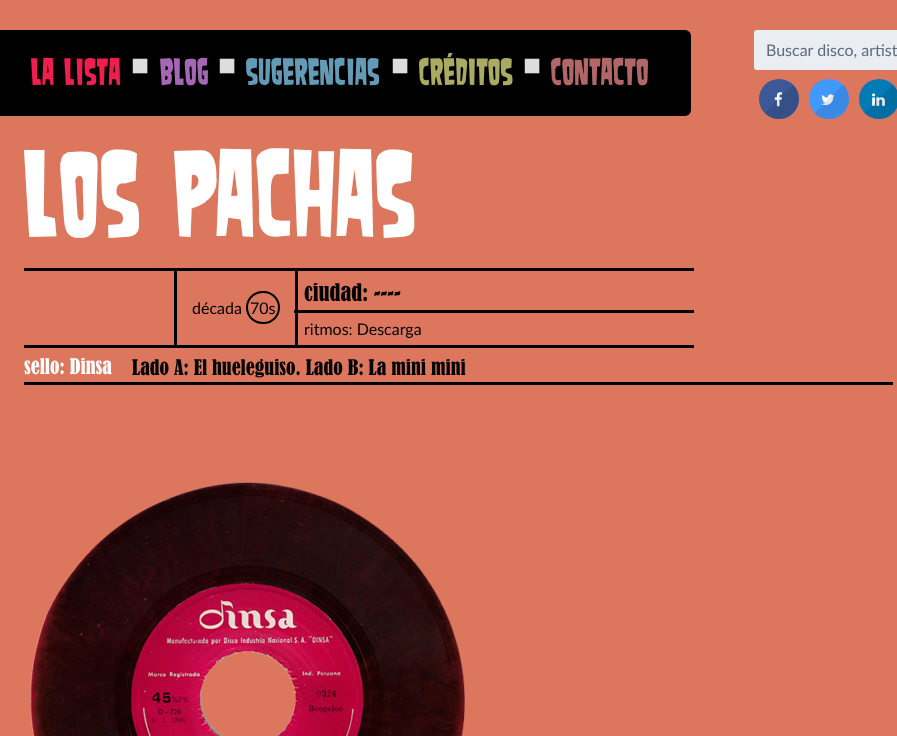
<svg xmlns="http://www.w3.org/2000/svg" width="897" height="736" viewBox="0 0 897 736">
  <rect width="100%" height="100%" fill="rgb(220,119,94)"/>
  <rect x="-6" y="30" width="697" height="86" rx="6" fill="rgb(0,0,0)"/>
  <text x="31" y="85" font-family="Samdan" font-size="33.5" fill="rgb(240,29,79)">La Lista</text>
  <text x="131" y="75" font-family="Liberation Serif" font-size="30" fill="rgb(221,221,221)">■</text>
  <text x="160" y="85" font-family="Samdan" font-size="33.5" fill="rgb(165,103,181)">Blog</text>
  <text x="218" y="75" font-family="Liberation Serif" font-size="30" fill="rgb(221,221,221)">■</text>
  <text x="246" y="85" font-family="Samdan" font-size="33.5" fill="rgb(99,154,181)">Sugerencias</text>
  <text x="391" y="75" font-family="Liberation Serif" font-size="30" fill="rgb(221,221,221)">■</text>
  <text x="419" y="85" font-family="Samdan" font-size="33.5" fill="rgb(170,170,98)">Créditos</text>
  <text x="523" y="75" font-family="Liberation Serif" font-size="30" fill="rgb(221,221,221)">■</text>
  <text x="551" y="85" font-family="Samdan" font-size="33.5" fill="rgb(177,103,103)">Contacto</text>
  <rect x="754" y="30" width="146" height="40" rx="3" fill="rgb(234,237,242)"/>
  <text x="766" y="56" font-family="Lato" font-size="16" fill="rgb(92,107,128)">Buscar disco, artist</text>
  <circle cx="779" cy="99" r="20" fill="rgb(59,89,152)"/>
  <path d="M792.5 85.5C805.5 98.5 793.5 121.5 775.5 117.5C771.5 117 768 115 765.5 112.5" fill="none" stroke="rgba(0,0,0,0.1)" stroke-width="2"/>
  <image x="774" y="92" width="9" height="15" href="pic1.png"/>
  <path d="M766 111.5L791.5 86C798.5 92.5 799 104.5 791.5 111.5C784.5 118.5 773 118.5 766 111.5Z" fill="rgba(0,0,0,0.1)"/>
  <circle cx="829" cy="99" r="20" fill="rgb(64,153,255)"/>
  <path d="M842.5 85.5C855.5 98.5 843.5 121.5 825.5 117.5C821.5 117 818 115 815.5 112.5" fill="none" stroke="rgba(0,0,0,0.1)" stroke-width="2"/>
  <image x="821" y="94" width="14" height="12" href="pic2.png"/>
  <path d="M816 111.5L841.5 86C848.5 92.5 849 104.5 841.5 111.5C834.5 118.5 823 118.5 816 111.5Z" fill="rgba(0,0,0,0.1)"/>
  <circle cx="879" cy="99" r="20" fill="rgb(0,123,182)"/>
  <path d="M892.5 85.5C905.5 98.5 893.5 121.5 875.5 117.5C871.5 117 868 115 865.5 112.5" fill="none" stroke="rgba(0,0,0,0.1)" stroke-width="2"/>
  <image x="872" y="93" width="13" height="13" href="pic3.png"/>
  <path d="M866 111.5L891.5 86C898.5 92.5 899 104.5 891.5 111.5C884.5 118.5 873 118.5 866 111.5Z" fill="rgba(0,0,0,0.1)"/>
  <text x="24" y="237" font-family="Samdan" font-size="109" fill="rgb(255,255,255)">Los Pachas</text>
  <rect x="24" y="268" width="150" height="3" fill="rgb(0,0,0)"/>
  <rect x="24" y="345" width="150" height="3" fill="rgb(0,0,0)"/>
  <rect x="294" y="268" width="400" height="3" fill="rgb(0,0,0)"/>
  <rect x="294" y="310" width="400" height="3" fill="rgb(0,0,0)"/>
  <text x="304" y="301" font-family="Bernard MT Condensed" font-size="22.5" fill="rgb(0,0,0)">ciudad: ----</text>
  <rect x="294" y="345" width="400" height="3" fill="rgb(0,0,0)"/>
  <rect x="175.5" y="269.5" width="121" height="77" fill="none" stroke="rgb(0,0,0)" stroke-width="3"/>
  <text x="192" y="314" font-family="Lato" font-size="16" fill="rgb(0,0,0)">década</text>
  <rect x="247" y="292" width="32" height="31" rx="15.5" fill="none" stroke="rgb(0,0,0)" stroke-width="2"/>
  <g font-family="Lato" font-size="16" fill="rgb(0,0,0)">
    <text x="250" y="314">70s</text>
    <text x="304" y="335">ritmos: Descarga</text>
  </g>
  <rect x="24" y="382" width="869" height="3" fill="rgb(0,0,0)"/>
  <text x="24" y="374" font-family="Bernard MT Condensed" font-size="20" fill="rgb(255,255,255)">sello: Dinsa</text>
  <text x="132" y="375" font-family="Bernard MT Condensed" font-size="20" fill="rgb(0,0,0)">Lado A: El hueleguiso. Lado B: La mini mini</text>
  <image x="29" y="479" width="436" height="257" href="pic4.png"/>
</svg>
